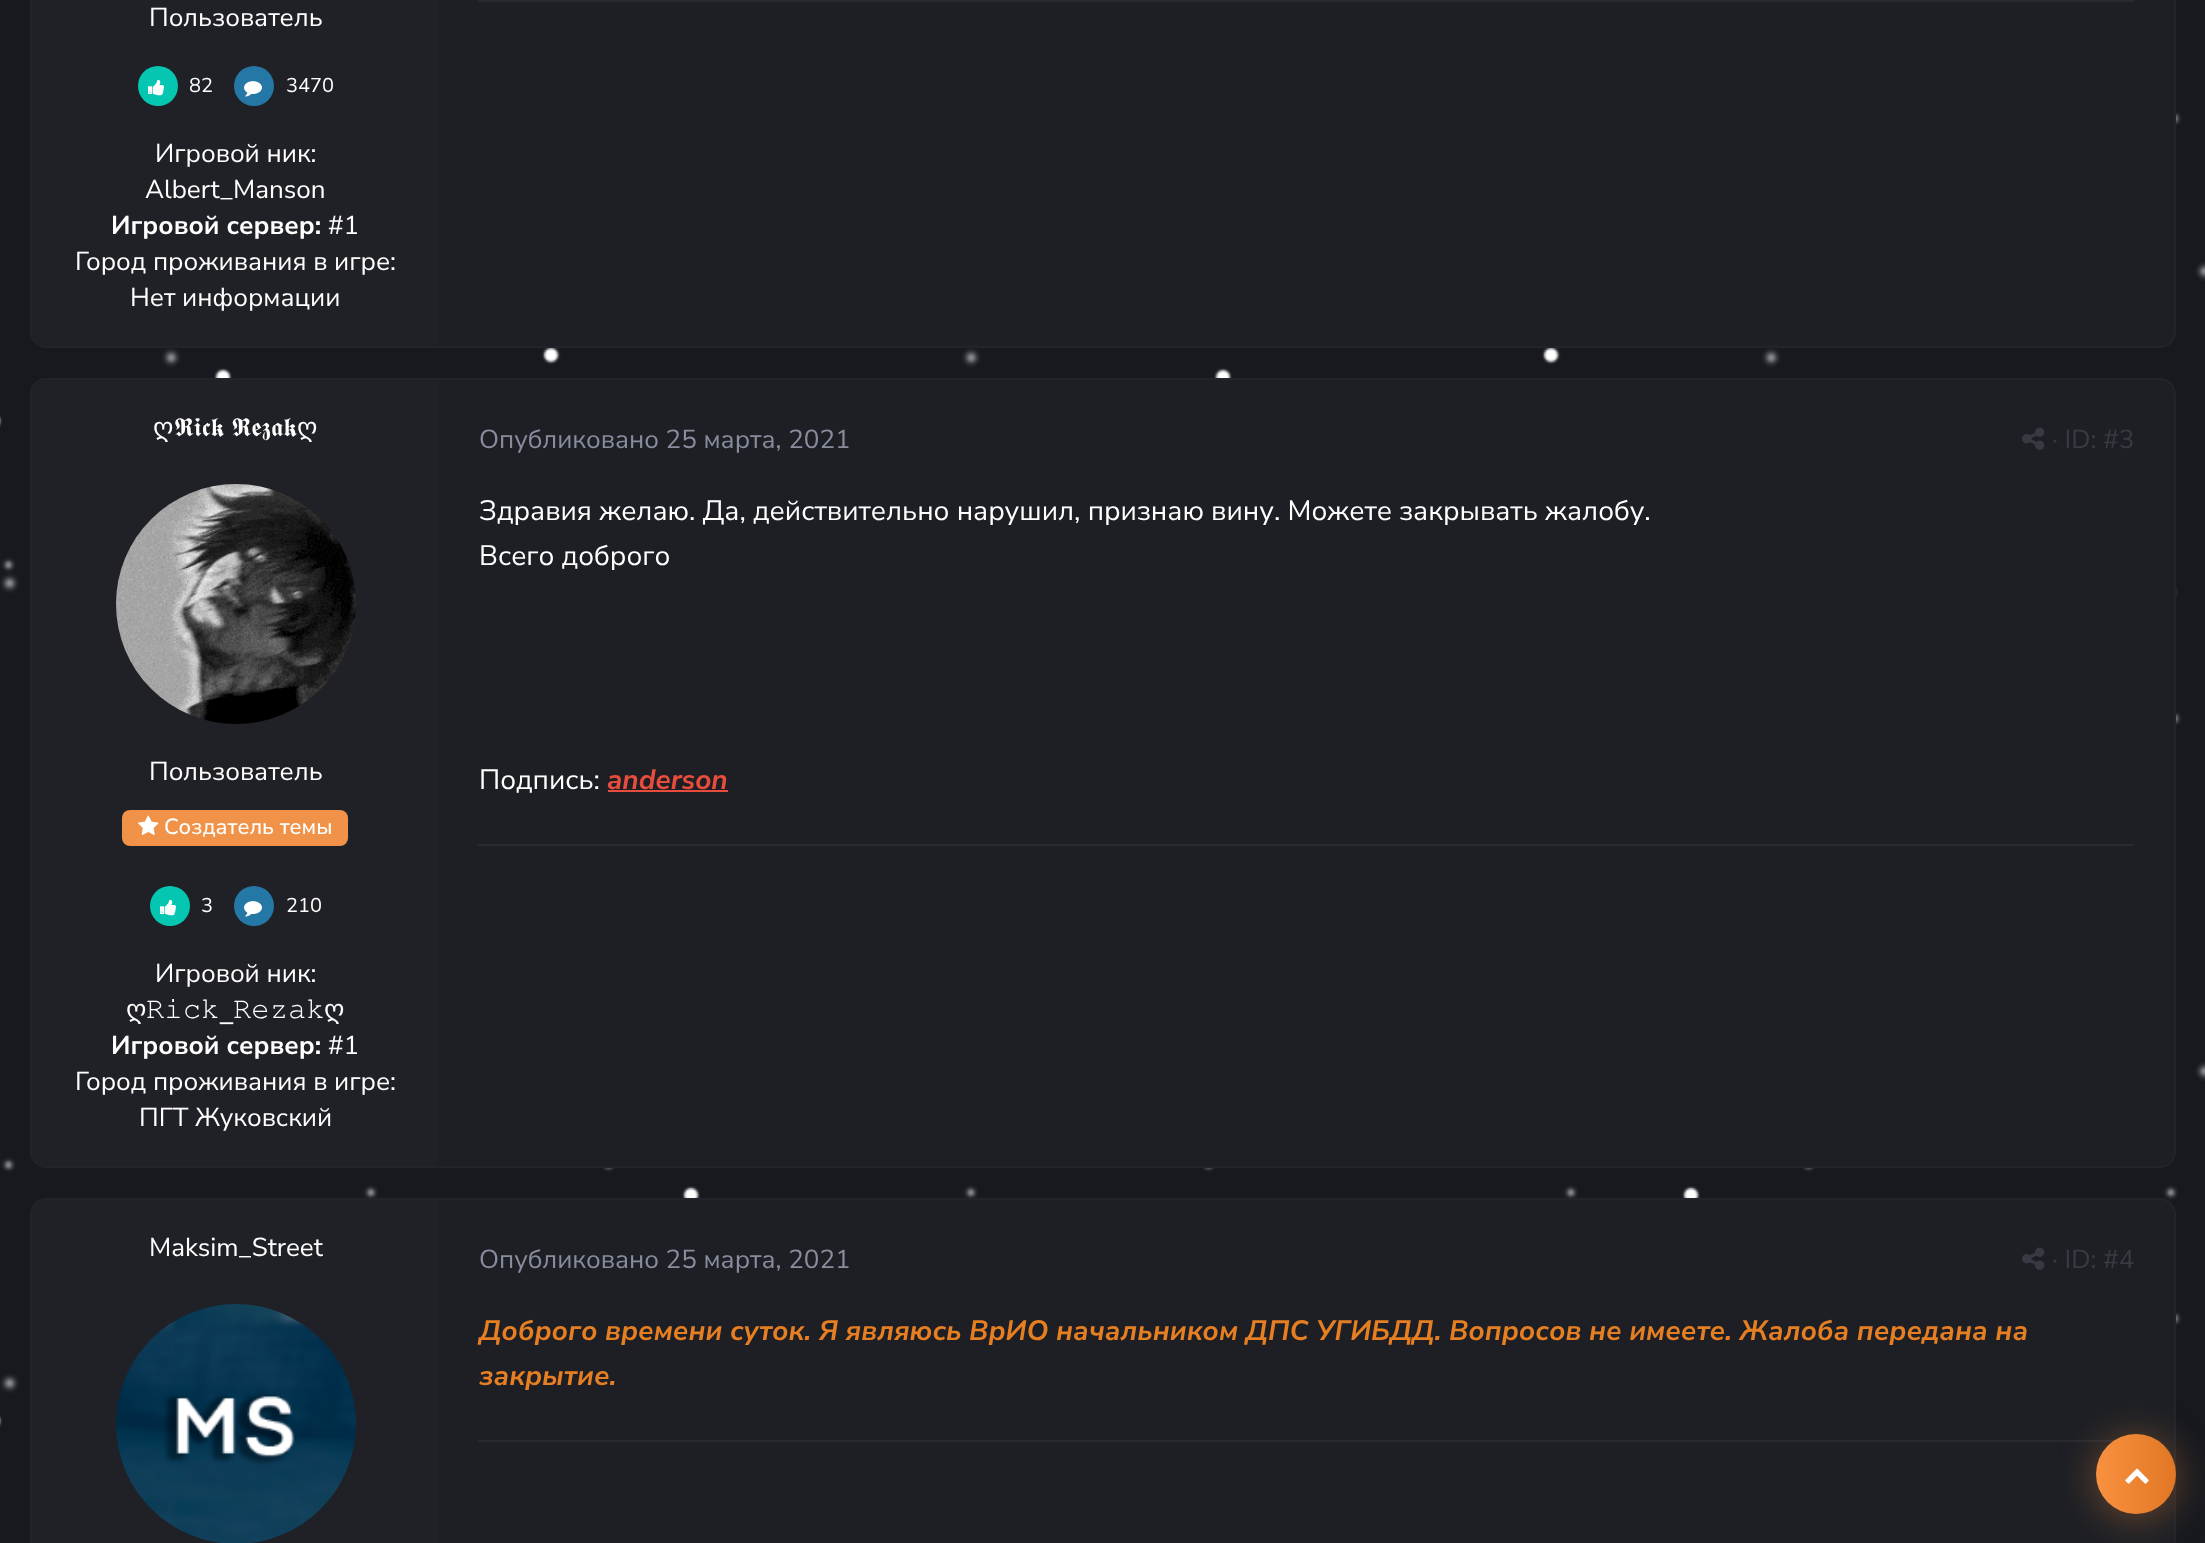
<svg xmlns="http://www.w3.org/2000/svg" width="2205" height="1543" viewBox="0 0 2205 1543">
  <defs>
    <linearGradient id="g1" gradientUnits="userSpaceOnUse" x1="2096" y1="1474" x2="2176" y2="1474"><stop offset="0" stop-color="rgb(248,145,64)"/><stop offset="1" stop-color="rgb(225,119,36)"/></linearGradient>
  </defs>
  <rect width="100%" height="100%" fill="rgb(23,25,31)"/>
  <image x="0" y="111" width="2205" height="1316" href="pic1.png"/>
  <rect x="31" y="-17" width="2144" height="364" rx="15" fill="rgb(29,31,37)" stroke="rgb(34,36,43)" stroke-width="2"/>
  <rect x="478" y="0" width="1656" height="2" fill="rgb(40,42,49)"/>
  <path d="M46-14H438V346H46C38.5 346 32 339.5 32 332V0C32-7.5 38.5-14 46-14Z" fill="rgb(32,33,39)"/>
  <text x="149" y="26" font-family="Nunito Sans" font-size="26" fill="rgb(255,255,255)">Пользователь</text>
  <circle cx="158" cy="86" r="20" fill="rgb(5,198,177)"/>
  <image x="148" y="79" width="16" height="17" href="pic2.png"/>
  <text x="189" y="92" font-family="Nunito Sans" font-size="20" fill="rgb(255,255,255)">82</text>
  <circle cx="254" cy="86" r="20" fill="rgb(37,119,166)"/>
  <image x="244" y="81" width="18" height="16" href="pic3.png"/>
  <text x="286" y="92" font-family="Nunito Sans" font-size="20" fill="rgb(255,255,255)">3470</text>
  <g font-family="Nunito Sans" font-size="26" fill="rgb(255,255,255)">
    <text x="155" y="162">Игровой ник:</text>
    <text x="145" y="198">Albert_Manson</text>
  </g>
  <text x="111" y="234" font-family="Nunito Sans" font-size="26" font-weight="bold" fill="rgb(255,255,255)">Игровой сервер:</text>
  <g font-family="Nunito Sans" font-size="26" fill="rgb(255,255,255)">
    <text x="328" y="234">#1</text>
    <text x="75" y="270">Город проживания в игре:</text>
    <text x="130" y="306">Нет информации</text>
  </g>
  <rect x="31" y="379" width="2144" height="788" rx="15" fill="rgb(29,31,37)" stroke="rgb(34,36,43)" stroke-width="2"/>
  <path d="M46 380H438V1166H46C38.5 1166 32 1159.5 32 1152V394C32 386.5 38.5 380 46 380Z" fill="rgb(32,33,39)"/>
  <text x="153" y="436" font-family="DejaVu Sans" font-size="26" fill="rgb(255,255,255)">ღ</text>
  <text x="174" y="436" font-family="FreeSerif" font-size="26" fill="rgb(255,255,255)">𝕽𝖎𝖈𝖐 𝕽𝖊𝖟𝖆𝖐</text>
  <text x="297" y="436" font-family="DejaVu Sans" font-size="26" fill="rgb(255,255,255)">ღ</text>
  <image x="116" y="484" width="240" height="240" href="pic4.png"/>
  <text x="149" y="780" font-family="Nunito Sans" font-size="26" fill="rgb(255,255,255)">Пользователь</text>
  <rect x="122" y="810" width="226" height="36" rx="8" fill="rgb(240,147,72)"/>
  <image x="138" y="815" width="21" height="20" href="pic5.png"/>
  <text x="164" y="834" font-family="Nunito Sans" font-size="22" font-weight="500" fill="rgb(255,255,255)">Создатель темы</text>
  <circle cx="170" cy="906" r="20" fill="rgb(5,198,177)"/>
  <image x="160" y="899" width="16" height="17" href="pic2.png"/>
  <text x="201" y="912" font-family="Nunito Sans" font-size="20" fill="rgb(255,255,255)">3</text>
  <circle cx="254" cy="906" r="20" fill="rgb(37,119,166)"/>
  <image x="244" y="901" width="18" height="16" href="pic3.png"/>
  <text x="286" y="912" font-family="Nunito Sans" font-size="20" fill="rgb(255,255,255)">210</text>
  <text x="155" y="982" font-family="Nunito Sans" font-size="26" fill="rgb(255,255,255)">Игровой ник:</text>
  <text x="126" y="1018" font-family="DejaVu Sans" font-size="26" fill="rgb(255,255,255)">ღ</text>
  <text x="146" y="1018" font-family="FreeSerif" font-size="26" fill="rgb(255,255,255)">𝚁𝚒𝚌𝚔</text>
  <text x="220" y="1018" font-family="DejaVu Sans" font-size="26" fill="rgb(255,255,255)">_</text>
  <text x="233" y="1018" font-family="FreeSerif" font-size="26" fill="rgb(255,255,255)">𝚁𝚎𝚣𝚊𝚔</text>
  <text x="324" y="1018" font-family="DejaVu Sans" font-size="26" fill="rgb(255,255,255)">ღ</text>
  <text x="111" y="1054" font-family="Nunito Sans" font-size="26" font-weight="bold" fill="rgb(255,255,255)">Игровой сервер:</text>
  <g font-family="Nunito Sans" font-size="26" fill="rgb(255,255,255)">
    <text x="328" y="1054">#1</text>
    <text x="75" y="1090">Город проживания в игре:</text>
    <text x="139" y="1126">ПГТ Жуковский</text>
  </g>
  <text x="479" y="448" font-family="Nunito Sans" font-size="26" fill="rgb(136,141,157)">Опубликовано 25 марта, 2021</text>
  <image x="2022" y="427" width="23" height="23" href="pic6.png"/>
  <text x="2052" y="448" font-family="Nunito Sans" font-size="26" fill="rgb(56,59,67)">· ID: #3</text>
  <g font-family="Nunito Sans" font-size="28" fill="rgb(255,255,255)">
    <text>
      <tspan x="479" y="520">Здравия желаю. Да, действительно нарушил, признаю вину. Можете закрывать жалобу.</tspan>
      <tspan x="479" y="565">Всего доброго</tspan>
    </text>
    <text x="479" y="789">Подпись:</text>
  </g>
  <text x="607" y="789" font-family="Nunito Sans" font-size="28" font-weight="bold" font-style="italic" fill="rgb(231,76,60)">anderson</text>
  <rect x="608" y="790" width="120" height="2" fill="rgb(231,76,60)"/>
  <rect x="478" y="844" width="1656" height="2" fill="rgb(40,42,49)"/>
  <rect x="31" y="1199" width="2144" height="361" rx="15" fill="rgb(29,31,37)" stroke="rgb(34,36,43)" stroke-width="2"/>
  <path d="M46 1200H438V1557H46C38.5 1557 32 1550.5 32 1543V1214C32 1206.5 38.5 1200 46 1200Z" fill="rgb(32,33,39)"/>
  <text x="149" y="1256" font-family="Nunito Sans" font-size="26" fill="rgb(255,255,255)">Maksim_Street</text>
  <image x="116" y="1304" width="240" height="239" href="pic7.png"/>
  <text x="479" y="1268" font-family="Nunito Sans" font-size="26" fill="rgb(136,141,157)">Опубликовано 25 марта, 2021</text>
  <image x="2022" y="1247" width="23" height="23" href="pic6.png"/>
  <text x="2052" y="1268" font-family="Nunito Sans" font-size="26" fill="rgb(56,59,67)">· ID: #4</text>
  <g font-family="Nunito Sans" font-size="28" font-weight="bold" font-style="italic" fill="rgb(230,126,34)">
    <text>
      <tspan x="479" y="1340">Доброго времени суток. Я являюсь ВрИО начальником ДПС УГИБДД. Вопросов не имеете. Жалоба передана на</tspan>
      <tspan x="479" y="1385">закрытие.</tspan>
    </text>
  </g>
  <rect x="478" y="1440" width="1637" height="2" fill="rgb(40,42,49)"/>
  <rect x="2092" y="1434" width="88" height="88" rx="44" fill="rgba(248,145,64,0.3)" filter="blur(18px)"/>
  <circle cx="2136" cy="1474" r="40" fill="url(#g1)"/>
  <image x="2125" y="1468" width="24" height="16" href="pic8.png"/>
</svg>
